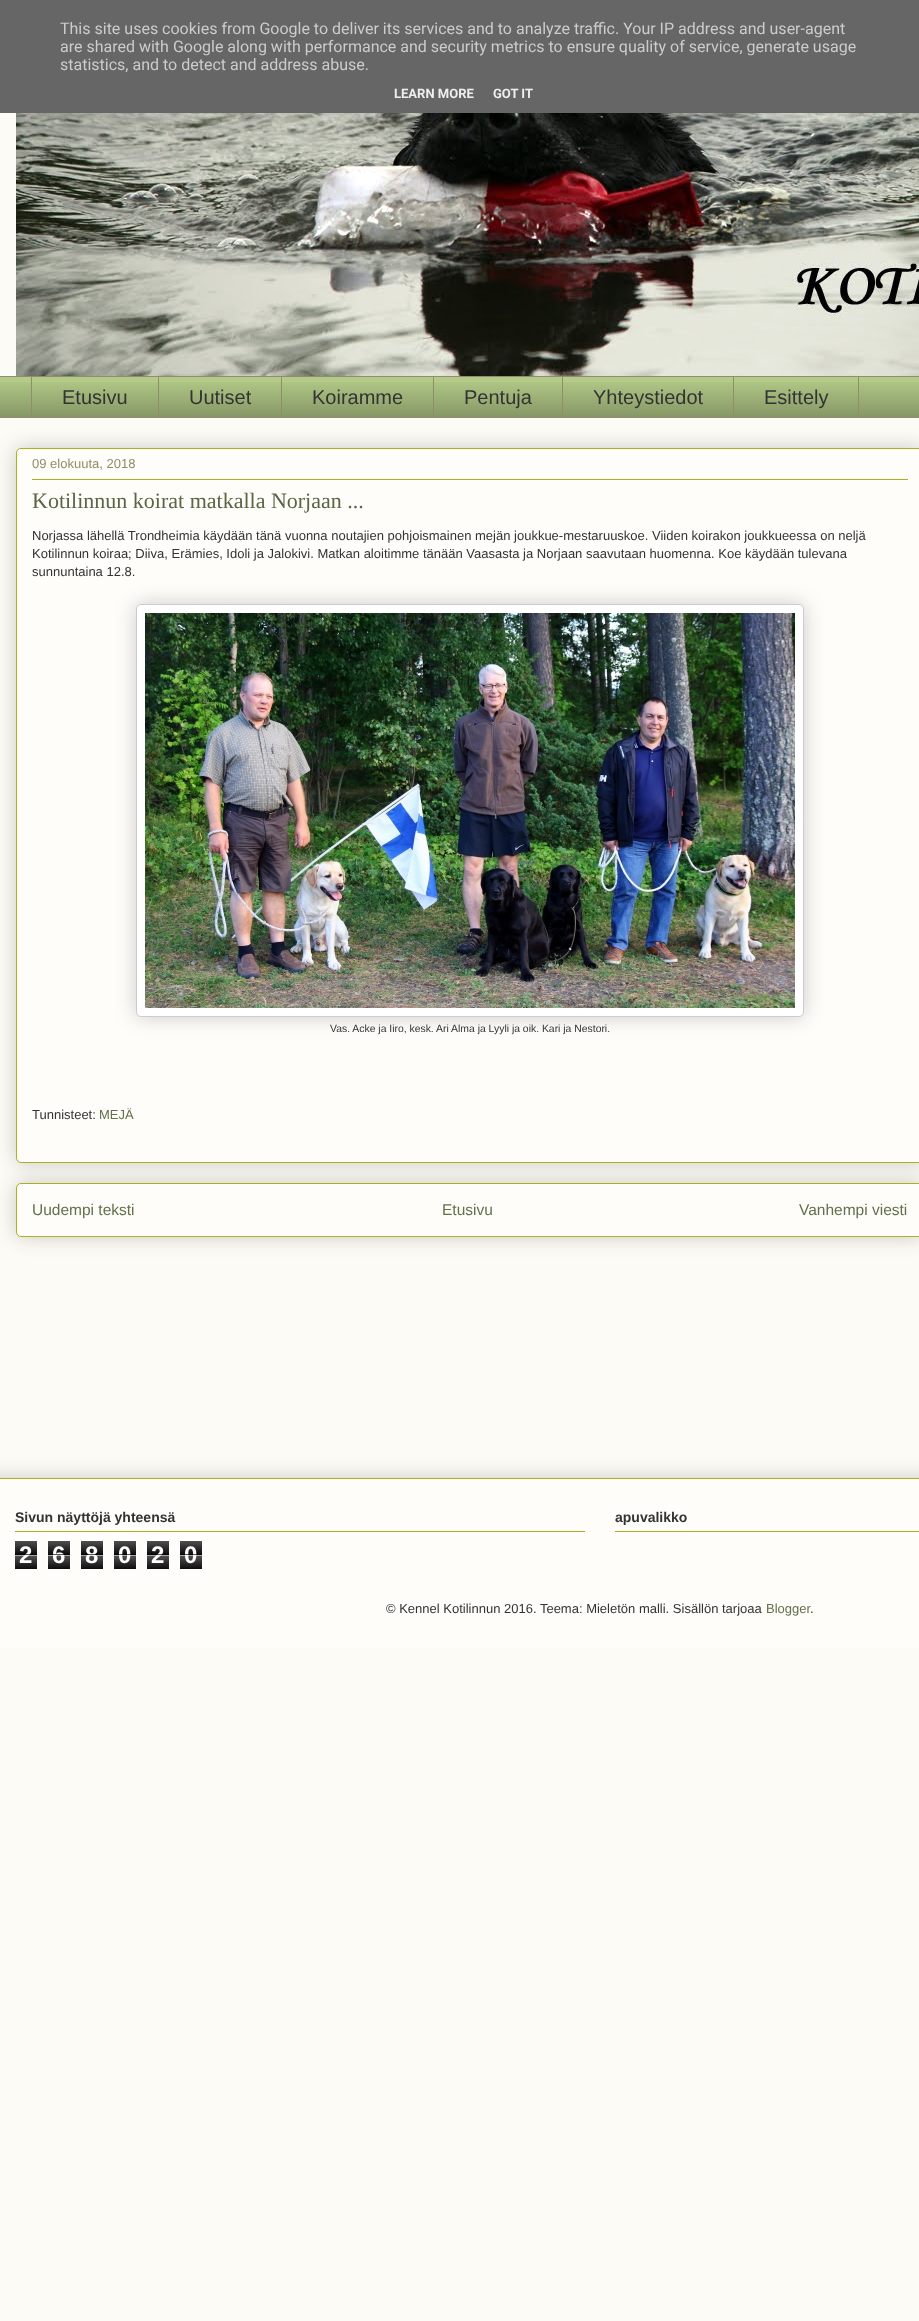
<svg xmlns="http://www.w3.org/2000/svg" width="919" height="2321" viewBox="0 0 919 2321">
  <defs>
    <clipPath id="clip1"><rect x="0" y="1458" width="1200" height="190"/></clipPath>
  </defs>
  <rect width="100%" height="100%" fill="rgb(252,251,245)"/>
  <rect x="0" y="0" width="919" height="113" fill="rgb(102,102,102)"/>
  <g font-family="Roboto" font-size="16" fill="rgb(204,204,204)">
    <text>
      <tspan x="60" y="34">This site uses cookies from Google to deliver its services and to analyze traffic. Your IP address and user-agent</tspan>
      <tspan x="60" y="52">are shared with Google along with performance and security metrics to ensure quality of service, generate usage</tspan>
      <tspan x="60" y="70">statistics, and to detect and address abuse.</tspan>
    </text>
  </g>
  <g font-family="Roboto" font-size="13" font-weight="bold" fill="rgb(238,238,238)">
    <text x="394" y="98">LEARN MORE</text>
    <text x="493" y="98">GOT IT</text>
  </g>
  <image x="16" y="113" width="903" height="263" href="pic1.png"/>
  <rect x="0" y="377" width="919" height="40" fill="rgb(179,202,136)"/>
  <image x="0" y="382" width="919" height="35" href="pic2.png"/>
  <rect x="0" y="376" width="919" height="1" fill="rgb(144,141,106)"/>
  <rect x="31" y="376" width="1" height="42" fill="rgb(144,141,106)"/>
  <text x="62" y="404" font-family="Liberation Sans" font-size="20" fill="rgb(51,51,51)">Etusivu</text>
  <rect x="158" y="376" width="1" height="42" fill="rgb(144,141,106)"/>
  <text x="189" y="404" font-family="Liberation Sans" font-size="20" fill="rgb(51,51,51)">Uutiset</text>
  <rect x="281" y="376" width="1" height="42" fill="rgb(144,141,106)"/>
  <text x="312" y="404" font-family="Liberation Sans" font-size="20" fill="rgb(51,51,51)">Koiramme</text>
  <rect x="433" y="376" width="1" height="42" fill="rgb(144,141,106)"/>
  <text x="464" y="404" font-family="Liberation Sans" font-size="20" fill="rgb(51,51,51)">Pentuja</text>
  <rect x="562" y="376" width="1" height="42" fill="rgb(144,141,106)"/>
  <text x="593" y="404" font-family="Liberation Sans" font-size="20" fill="rgb(51,51,51)">Yhteystiedot</text>
  <rect x="733.5" y="376.5" width="125" height="41" fill="none" stroke="rgb(144,141,106)"/>
  <text x="764" y="404" font-family="Liberation Sans" font-size="20" fill="rgb(51,51,51)">Esittely</text>
  <rect x="0" y="417" width="919" height="1" fill="rgb(144,141,106)"/>
  <rect x="16" y="1183" width="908" height="54" rx="5" fill="rgba(0,0,0,0.2)" filter="blur(10px)"/>
  <rect x="16.5" y="1183.5" width="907" height="53" rx="4.5" fill="rgb(254,253,250)" stroke="rgb(170,177,35)"/>
  <rect x="16" y="448" width="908" height="715" rx="5" fill="rgba(0,0,0,0.2)" filter="blur(10px)"/>
  <rect x="16.5" y="448.5" width="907" height="714" rx="4.5" fill="rgb(254,253,250)" stroke="rgb(170,177,35)"/>
  <text x="32" y="468" font-family="Liberation Sans" font-size="13" fill="rgb(144,141,106)">09 elokuuta, 2018</text>
  <rect x="32" y="479" width="876" height="1" fill="rgb(170,177,35)"/>
  <text x="32" y="508" font-family="Liberation Serif" font-size="22" fill="rgb(89,101,68)">Kotilinnun koirat matkalla Norjaan ...</text>
  <g font-family="Liberation Sans" font-size="13" fill="rgb(51,51,51)">
    <text>
      <tspan x="32" y="540">Norjassa lähellä Trondheimia käydään tänä vuonna noutajien pohjoismainen mejän joukkue-mestaruuskoe. Viiden koirakon joukkueessa on neljä</tspan>
      <tspan x="32" y="558">Kotilinnun koiraa; Diiva, Erämies, Idoli ja Jalokivi. Matkan aloitimme tänään Vaasasta ja Norjaan saavutaan huomenna. Koe käydään tulevana</tspan>
      <tspan x="32" y="576">sunnuntaina 12.8.</tspan>
    </text>
  </g>
  <rect x="136" y="604" width="668" height="413" rx="5" fill="rgba(0,0,0,0.2)" filter="blur(10px)"/>
  <rect x="136.5" y="604.5" width="667" height="412" rx="4.5" fill="rgb(255,255,255)" stroke="rgb(204,204,204)"/>
  <image x="145" y="613" width="650" height="395" href="pic3.png"/>
  <text x="330" y="1032" font-family="Liberation Sans" font-size="10.4" fill="rgb(51,51,51)">Vas. Acke ja Iiro, kesk. Ari Alma ja Lyyli ja oik. Kari ja Nestori.</text>
  <text x="32" y="1119" font-family="Liberation Sans" font-size="13" fill="rgb(51,51,51)">Tunnisteet:</text>
  <text x="99" y="1119" font-family="Liberation Sans" font-size="13" fill="rgb(99,112,75)">MEJÄ</text>
  <g font-family="Liberation Sans" font-size="15.5" fill="rgb(99,112,75)">
    <text x="32" y="1215">Uudempi teksti</text>
    <text x="442" y="1215">Etusivu</text>
    <text x="799" y="1215">Vanhempi viesti</text>
  </g>
  <g clip-path="url(#clip1)">
    <rect x="-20" y="1478" width="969" height="170" fill="rgba(0,0,0,0.2)" filter="blur(10px)"/>
  </g>
  <rect x="0" y="1479" width="919" height="169" fill="rgb(254,253,250)"/>
  <rect x="0" y="1478" width="919" height="1" fill="rgb(170,177,35)"/>
  <text x="15" y="1522" font-family="Liberation Sans" font-size="14" font-weight="bold" fill="rgb(51,51,51)">Sivun näyttöjä yhteensä</text>
  <rect x="15" y="1531" width="570" height="1" fill="rgb(170,177,35)"/>
  <image x="15" y="1541" width="22" height="28" href="pic4.png"/>
  <rect x="14.5" y="1540.5" width="23" height="29" fill="none" stroke="rgb(255,255,255)"/>
  <text x="19" y="1563" font-family="Liberation Sans" font-size="24" font-weight="bold" fill="rgb(255,255,255)">2</text>
  <rect x="15" y="1554" width="22" height="1" fill="rgba(0,0,0,0.65)"/>
  <rect x="15" y="1555" width="22" height="1" fill="rgba(255,255,255,0.65)"/>
  <image x="48" y="1541" width="22" height="28" href="pic4.png"/>
  <rect x="47.5" y="1540.5" width="23" height="29" fill="none" stroke="rgb(255,255,255)"/>
  <text x="52" y="1563" font-family="Liberation Sans" font-size="24" font-weight="bold" fill="rgb(255,255,255)">6</text>
  <rect x="48" y="1554" width="22" height="1" fill="rgba(0,0,0,0.65)"/>
  <rect x="48" y="1555" width="22" height="1" fill="rgba(255,255,255,0.65)"/>
  <image x="81" y="1541" width="22" height="28" href="pic4.png"/>
  <rect x="80.5" y="1540.5" width="23" height="29" fill="none" stroke="rgb(255,255,255)"/>
  <text x="85" y="1563" font-family="Liberation Sans" font-size="24" font-weight="bold" fill="rgb(255,255,255)">8</text>
  <rect x="81" y="1554" width="22" height="1" fill="rgba(0,0,0,0.65)"/>
  <rect x="81" y="1555" width="22" height="1" fill="rgba(255,255,255,0.65)"/>
  <image x="114" y="1541" width="22" height="28" href="pic4.png"/>
  <rect x="113.5" y="1540.5" width="23" height="29" fill="none" stroke="rgb(255,255,255)"/>
  <text x="118" y="1563" font-family="Liberation Sans" font-size="24" font-weight="bold" fill="rgb(255,255,255)">0</text>
  <rect x="114" y="1554" width="22" height="1" fill="rgba(0,0,0,0.65)"/>
  <rect x="114" y="1555" width="22" height="1" fill="rgba(255,255,255,0.65)"/>
  <image x="147" y="1541" width="22" height="28" href="pic4.png"/>
  <rect x="146.5" y="1540.5" width="23" height="29" fill="none" stroke="rgb(255,255,255)"/>
  <text x="151" y="1563" font-family="Liberation Sans" font-size="24" font-weight="bold" fill="rgb(255,255,255)">2</text>
  <rect x="147" y="1554" width="22" height="1" fill="rgba(0,0,0,0.65)"/>
  <rect x="147" y="1555" width="22" height="1" fill="rgba(255,255,255,0.65)"/>
  <image x="180" y="1541" width="22" height="28" href="pic4.png"/>
  <rect x="179.5" y="1540.5" width="23" height="29" fill="none" stroke="rgb(255,255,255)"/>
  <text x="184" y="1563" font-family="Liberation Sans" font-size="24" font-weight="bold" fill="rgb(255,255,255)">0</text>
  <rect x="180" y="1554" width="22" height="1" fill="rgba(0,0,0,0.65)"/>
  <rect x="180" y="1555" width="22" height="1" fill="rgba(255,255,255,0.65)"/>
  <text x="615" y="1522" font-family="Liberation Sans" font-size="14" font-weight="bold" fill="rgb(51,51,51)">apuvalikko</text>
  <rect x="615" y="1531" width="304" height="1" fill="rgb(170,177,35)"/>
  <text x="386" y="1613" font-family="Liberation Sans" font-size="13" fill="rgb(51,51,51)">© Kennel Kotilinnun 2016. Teema: Mieletön malli. Sisällön tarjoaa</text>
  <text x="766" y="1613" font-family="Liberation Sans" font-size="13" fill="rgb(99,112,75)">Blogger</text>
  <text x="810" y="1613" font-family="Liberation Sans" font-size="13" fill="rgb(51,51,51)">.</text>
</svg>
